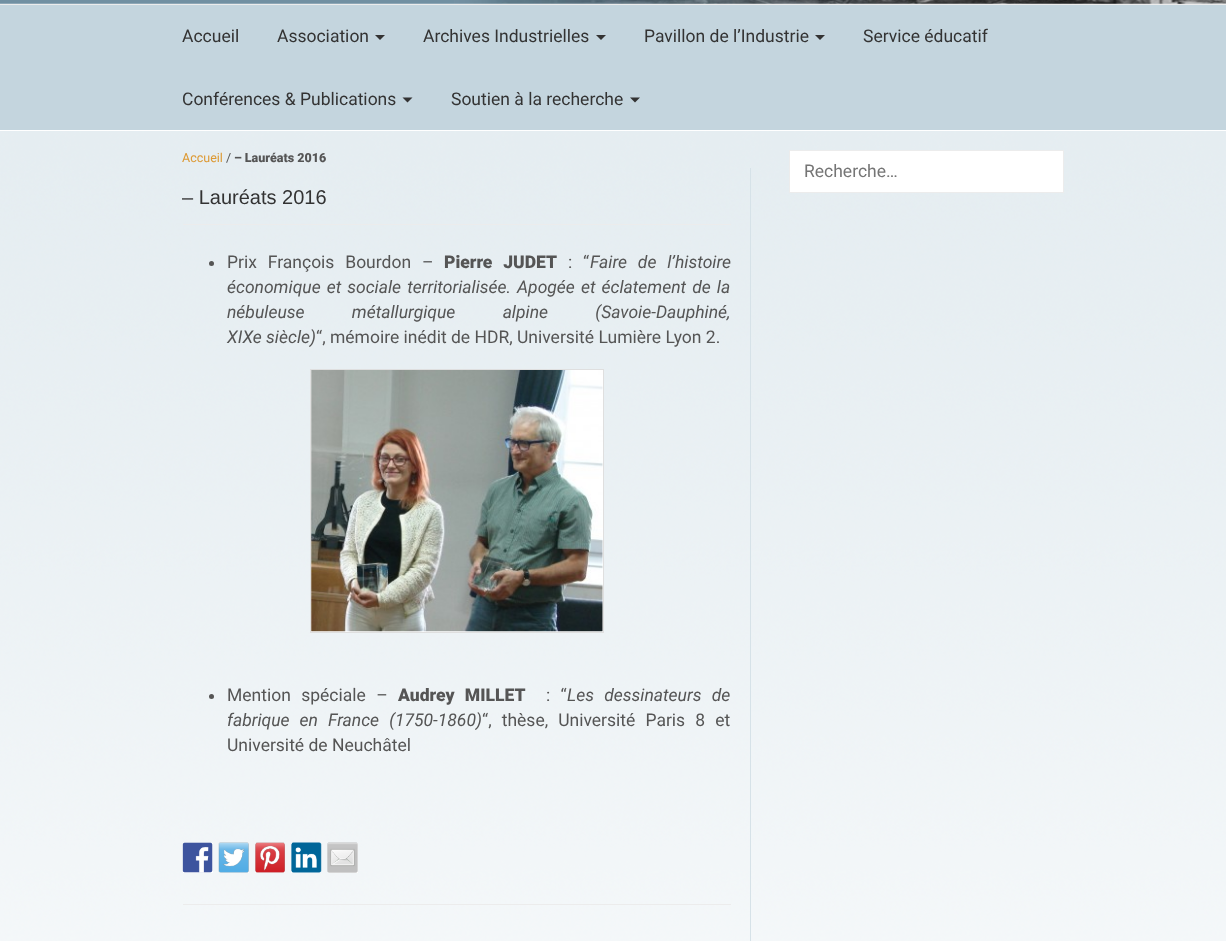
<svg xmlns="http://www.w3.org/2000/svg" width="1226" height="941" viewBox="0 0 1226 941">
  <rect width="100%" height="100%" fill="rgb(255,255,255)"/>
  <image x="0" y="3" width="1226" height="938" href="pic1.png"/>
  <image x="0" y="0" width="1226" height="4" href="pic2.png"/>
  <rect x="0" y="5" width="1226" height="125" fill="rgb(196,213,222)"/>
  <rect x="0" y="4" width="1226" height="1" fill="rgb(236,236,236)"/>
  <rect x="0" y="130" width="1226" height="1" fill="rgb(255,255,255)"/>
  <g font-family="Roboto" font-size="17.5" fill="rgb(51,51,51)">
    <text x="182" y="42">Accueil</text>
    <text x="277" y="42">Association</text>
  </g>
  <path d="M375 35H385L380 40Z" fill="rgb(51,51,51)"/>
  <text x="423" y="42" font-family="Roboto" font-size="17.5" fill="rgb(51,51,51)">Archives Industrielles</text>
  <path d="M596 35H606L601 40Z" fill="rgb(51,51,51)"/>
  <text x="644" y="42" font-family="Roboto" font-size="17.5" fill="rgb(51,51,51)">Pavillon de l’Industrie</text>
  <path d="M815 35H825L820 40Z" fill="rgb(51,51,51)"/>
  <g font-family="Roboto" font-size="17.5" fill="rgb(51,51,51)">
    <text x="863" y="42">Service éducatif</text>
    <text x="182" y="105">Conférences &amp; Publications</text>
  </g>
  <path d="M402.5 97.5H412.5L407.5 102.5Z" fill="rgb(51,51,51)"/>
  <text x="451" y="105" font-family="Roboto" font-size="17.5" fill="rgb(51,51,51)">Soutien à la recherche</text>
  <path d="M630 97.5H640L635 102.5Z" fill="rgb(51,51,51)"/>
  <text x="182" y="162" font-family="Roboto" font-size="12.5" fill="rgb(221,153,51)">Accueil</text>
  <text x="226" y="162" font-family="Roboto" font-size="12.5" fill="rgb(85,85,85)">/</text>
  <text x="234" y="162" font-family="Roboto" font-size="12.5" font-weight="900" fill="rgb(85,85,85)">– Lauréats 2016</text>
  <rect x="750" y="168" width="1" height="773" fill="rgb(214,226,232)"/>
  <text x="182" y="204" font-family="Liberation Sans" font-size="20" fill="rgb(51,51,51)">– Lauréats 2016</text>
  <rect x="183" y="224" width="548" height="1" fill="rgb(236,236,236)"/>
  <circle cx="211.5" cy="263.5" r="2.5" fill="rgb(85,85,85)"/>
  <text x="227" y="268" word-spacing="6.5" font-family="Roboto" font-size="17.5" fill="rgb(85,85,85)">Prix François Bourdon –</text>
  <text x="444" y="268" word-spacing="6.5" font-family="Roboto" font-size="17.5" font-weight="900" fill="rgb(85,85,85)">Pierre JUDET</text>
  <text x="568" y="268" word-spacing="6.5" font-family="Roboto" font-size="17.5" fill="rgb(85,85,85)">: “</text>
  <g font-family="Roboto" font-size="17.5" font-style="italic" fill="rgb(85,85,85)">
    <text x="590" y="268" word-spacing="6.5">Faire de l’histoire</text>
    <text>
      <tspan x="227" y="293" word-spacing="1.75">économique et sociale territorialisée. Apogée et éclatement de la</tspan>
      <tspan x="227" y="318" word-spacing="43">nébuleuse métallurgique alpine (Savoie-Dauphiné,</tspan>
      <tspan x="227" y="343">XIXe siècle)</tspan>
    </text>
  </g>
  <text x="316" y="343" font-family="Roboto" font-size="17.5" fill="rgb(85,85,85)">“, mémoire inédit de HDR, Université Lumière Lyon 2.</text>
  <rect x="310.5" y="369.5" width="293" height="263" fill="rgb(255,255,255)" stroke="rgb(223,223,223)"/>
  <image x="311" y="370" width="292" height="262" href="pic3.png"/>
  <circle cx="211.5" cy="696.5" r="2.5" fill="rgb(85,85,85)"/>
  <text x="227" y="701" word-spacing="6" font-family="Roboto" font-size="17.5" fill="rgb(85,85,85)">Mention spéciale –</text>
  <text x="398" y="701" word-spacing="6" font-family="Roboto" font-size="17.5" font-weight="900" fill="rgb(85,85,85)">Audrey MILLET</text>
  <text x="546" y="701" word-spacing="6" font-family="Roboto" font-size="17.5" fill="rgb(85,85,85)">: “</text>
  <g font-family="Roboto" font-size="17.5" font-style="italic" fill="rgb(85,85,85)">
    <text x="567" y="701" word-spacing="6">Les dessinateurs de</text>
    <text x="227" y="726" word-spacing="5.75">fabrique en France (1750-1860)</text>
  </g>
  <g font-family="Roboto" font-size="17.5" fill="rgb(85,85,85)">
    <text x="482" y="726" word-spacing="5.75">“, thèse, Université Paris 8 et</text>
    <text x="227" y="751">Université de Neuchâtel</text>
  </g>
  <rect x="183" y="843" width="30" height="30" fill="rgb(255,255,255)"/>
  <image x="182" y="842" width="31" height="31" href="pic4.png"/>
  <rect x="219" y="843" width="30" height="30" fill="rgb(255,255,255)"/>
  <image x="218" y="842" width="31" height="31" href="pic5.png"/>
  <rect x="255" y="843" width="30" height="30" fill="rgb(255,255,255)"/>
  <image x="255" y="842" width="30" height="31" href="pic6.png"/>
  <rect x="291" y="843" width="30" height="30" fill="rgb(255,255,255)"/>
  <image x="291" y="842" width="31" height="31" href="pic7.png"/>
  <rect x="328" y="843" width="30" height="30" fill="rgb(255,255,255)"/>
  <image x="327" y="842" width="31" height="31" href="pic8.png"/>
  <rect x="183" y="904" width="548" height="1" fill="rgb(236,236,236)"/>
  <rect x="789.5" y="150.5" width="274" height="42" fill="rgb(255,255,255)" stroke="rgb(236,236,236)"/>
  <text x="804" y="177" font-family="Roboto" font-size="17.5" fill="rgb(117,117,117)">Recherche…</text>
</svg>
